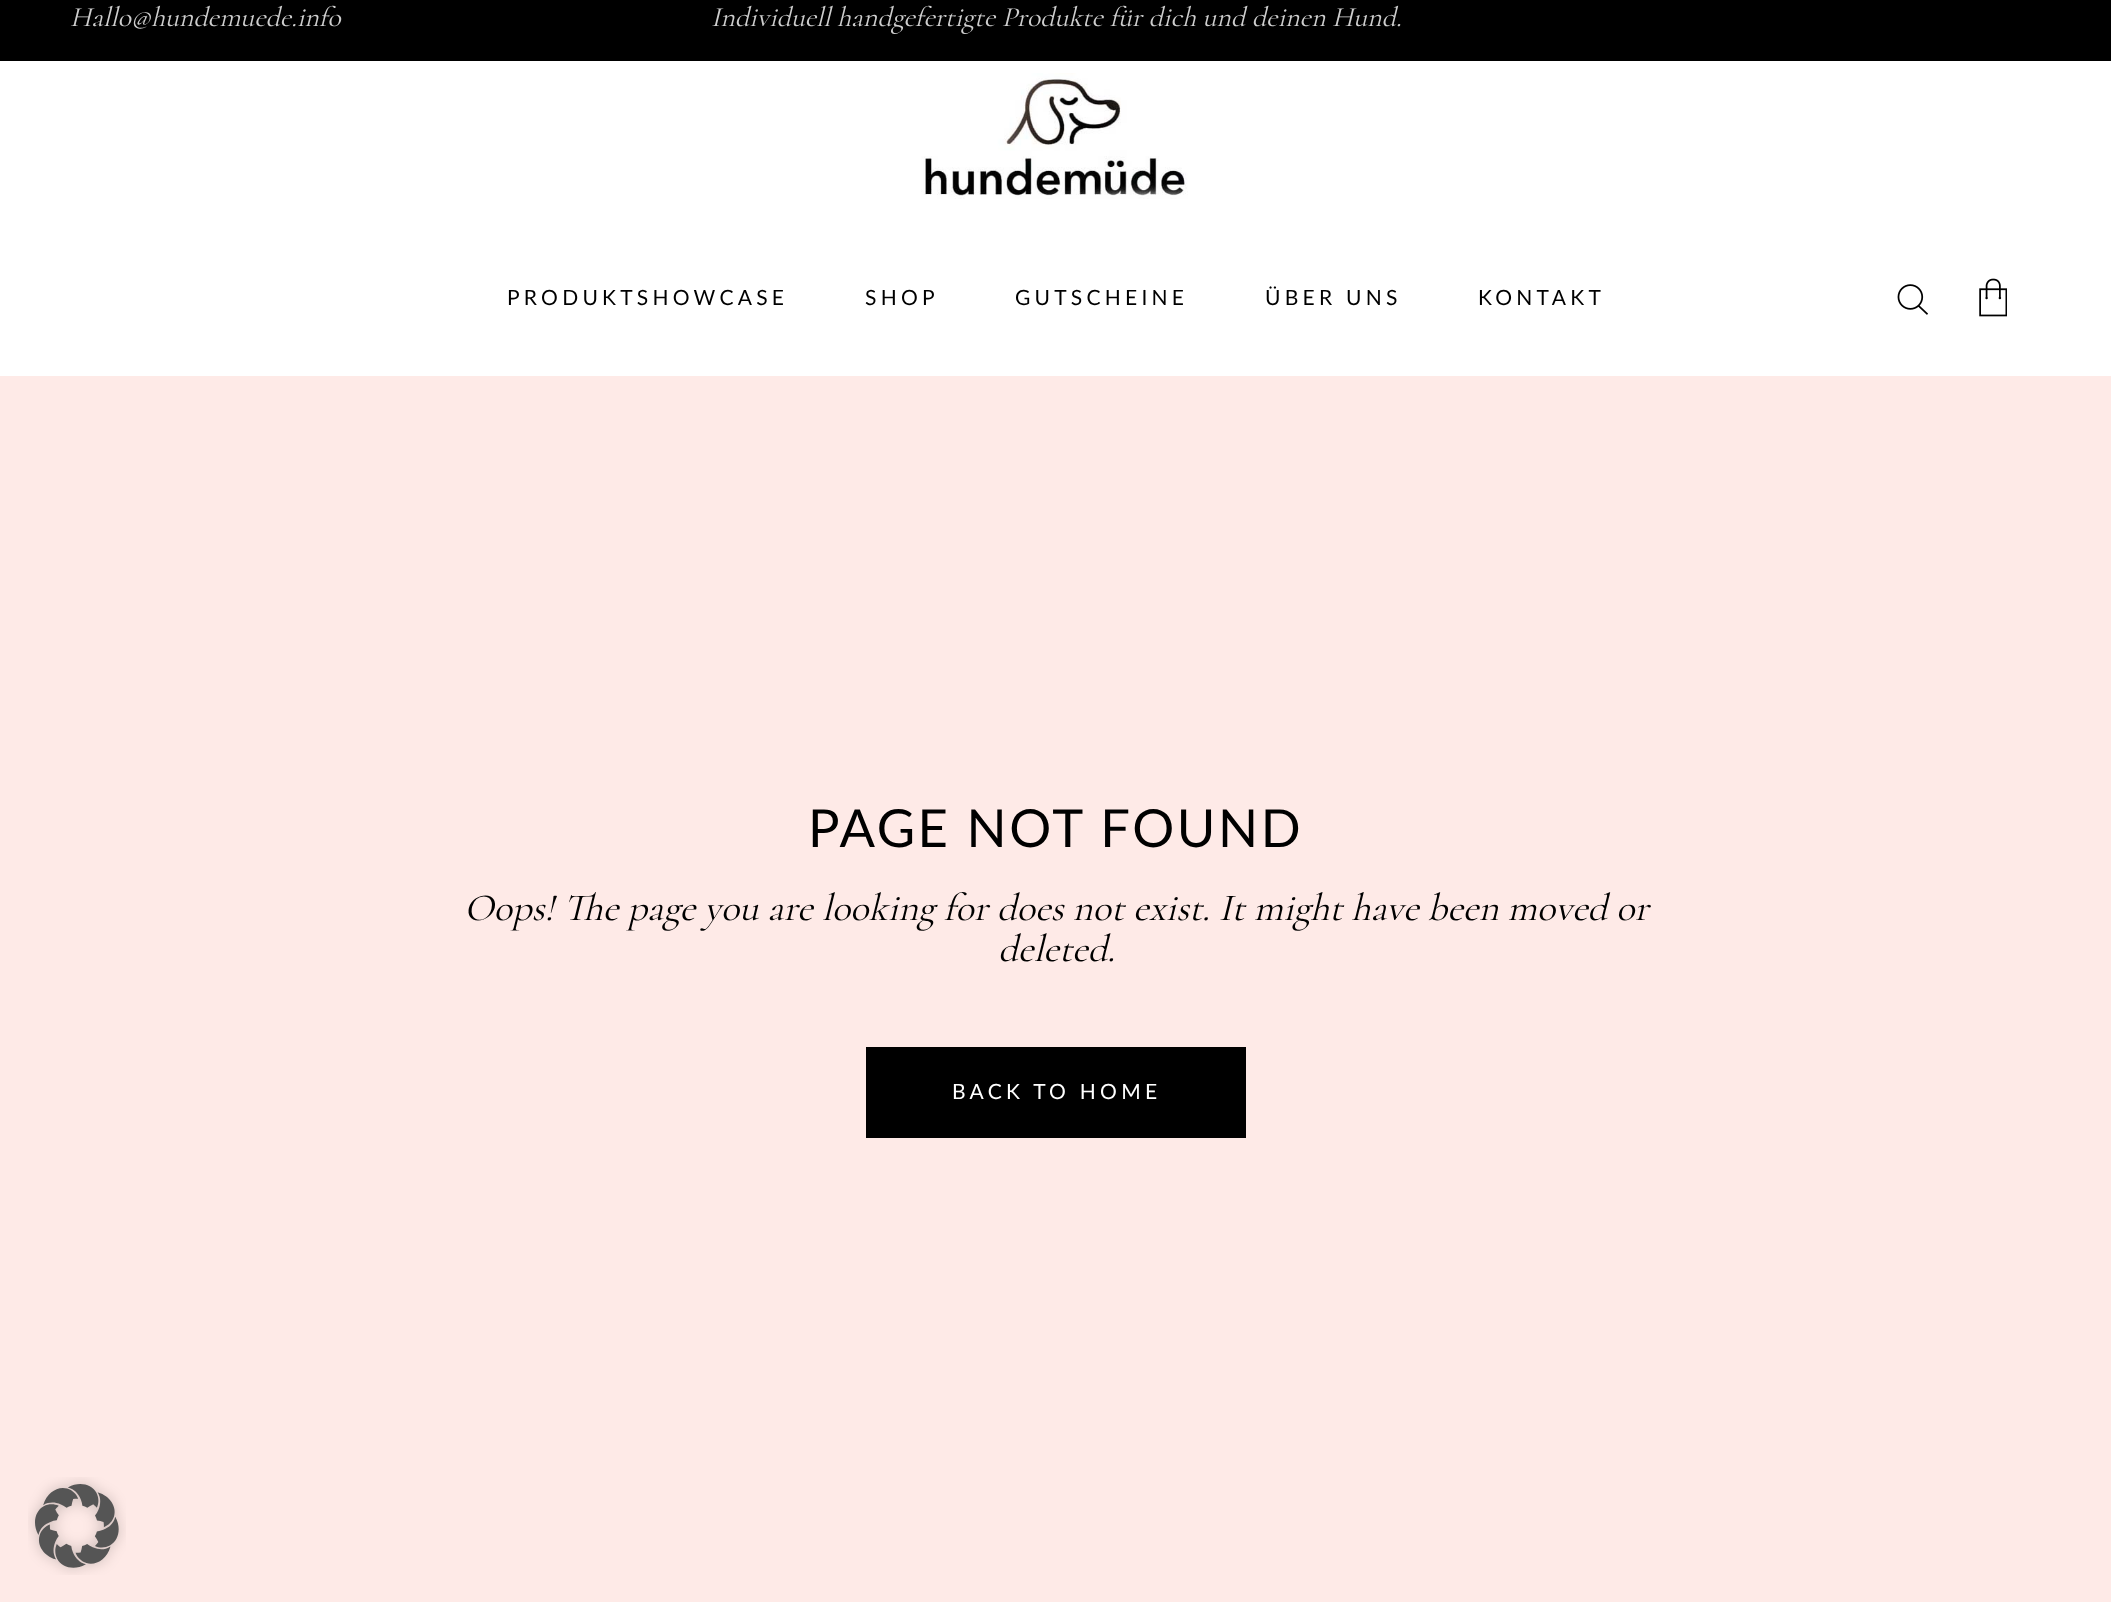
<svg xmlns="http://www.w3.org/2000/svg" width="2111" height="1602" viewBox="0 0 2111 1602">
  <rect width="100%" height="100%" fill="rgb(254,234,231)"/>
  <rect x="0" y="0" width="2111" height="61" fill="rgb(0,0,0)"/>
  <g font-family="Cormorant" font-size="28" font-style="italic" fill="rgb(206,206,206)">
    <text x="70" y="26">Hallo@hundemuede.info</text>
    <text x="711" y="26">Individuell handgefertigte Produkte für dich und deinen Hund.</text>
  </g>
  <rect x="0" y="61" width="2111" height="315" fill="rgb(255,255,255)"/>
  <image x="921" y="73" width="267" height="126" href="pic1.png"/>
  <g font-family="Lato" font-size="21" letter-spacing="4.25" fill="rgb(0,0,0)">
    <text x="507" y="305">PRODUKTSHOWCASE</text>
    <text x="865" y="305">SHOP</text>
    <text x="1015" y="305">GUTSCHEINE</text>
    <text x="1265" y="305">ÜBER UNS</text>
    <text x="1478" y="305">KONTAKT</text>
  </g>
  <image x="1897" y="284" width="31" height="31" href="pic2.png"/>
  <image x="1979" y="278" width="28" height="39" href="pic3.png"/>
  <text x="808" y="847" font-family="Lato" font-size="52.5" letter-spacing="2.6" fill="rgb(0,0,0)">PAGE NOT FOUND</text>
  <g font-family="Cormorant" font-size="38.5" font-style="italic" fill="rgb(0,0,0)">
    <text x="464" y="920">Oops! The page you are looking for does not exist. It might have been moved or</text>
    <text x="998" y="961">deleted.</text>
  </g>
  <rect x="866" y="1047" width="380" height="91" fill="rgb(0,0,0)"/>
  <text x="952" y="1099" font-family="Lato" font-size="21" letter-spacing="4.25" fill="rgb(255,255,255)">BACK TO HOME</text>
  <image x="28" y="1477" width="98" height="98" href="pic4.png"/>
</svg>
